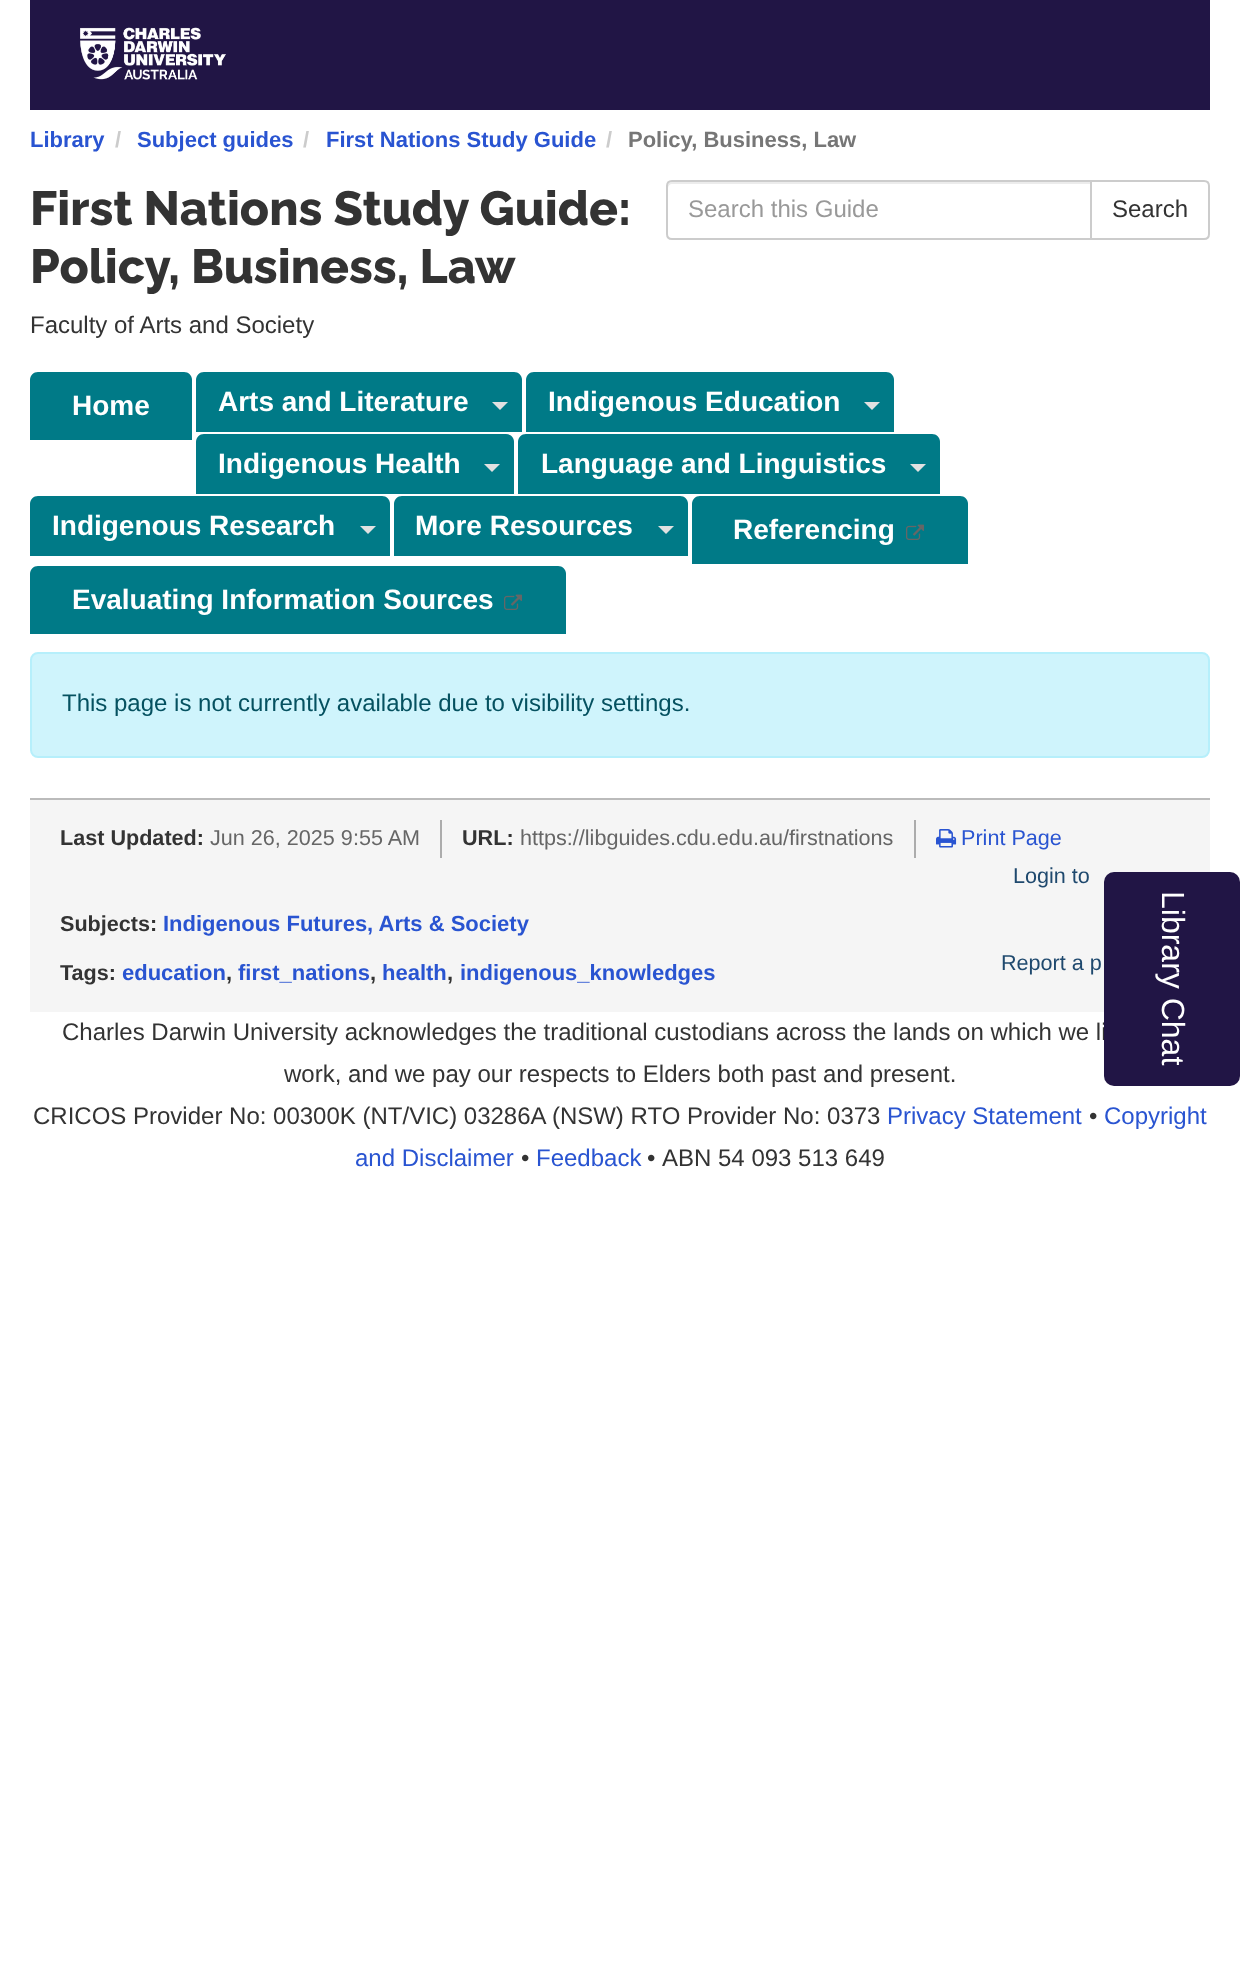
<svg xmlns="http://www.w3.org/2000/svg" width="1240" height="1978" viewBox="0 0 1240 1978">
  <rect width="100%" height="100%" fill="rgb(255,255,255)"/>
  <image x="30" y="0" width="1180" height="110" href="pic1.png"/>
  <text x="30" y="147" font-family="Liberation Sans" font-size="22" font-weight="bold" fill="rgb(41,84,209)">Library</text>
  <text x="115" y="147" font-family="Liberation Sans" font-size="22" font-weight="bold" fill="rgb(204,204,204)">/</text>
  <text x="137" y="147" font-family="Liberation Sans" font-size="22" font-weight="bold" fill="rgb(41,84,209)">Subject guides</text>
  <text x="303" y="147" font-family="Liberation Sans" font-size="22" font-weight="bold" fill="rgb(204,204,204)">/</text>
  <text x="326" y="147" font-family="Liberation Sans" font-size="22" font-weight="bold" fill="rgb(41,84,209)">First Nations Study Guide</text>
  <text x="606" y="147" font-family="Liberation Sans" font-size="22" font-weight="bold" fill="rgb(204,204,204)">/</text>
  <text x="628" y="147" font-family="Liberation Sans" font-size="22" font-weight="bold" fill="rgb(118,118,118)">Policy, Business, Law</text>
  <g font-family="Raleway" font-size="48" font-weight="100" fill="rgb(51,51,51)">
    <text>
      <tspan x="30" y="225">First Nations Study Guide:</tspan>
      <tspan x="30" y="283">Policy, Business, Law</tspan>
    </text>
  </g>
  <text x="30" y="333" font-family="Liberation Sans" font-size="24" fill="rgb(51,51,51)">Faculty of Arts and Society</text>
  <path d="M672 184H1090V182H672C668 182 668 185 668 188C668 186 670 184 672 184Z" fill="rgb(236,236,236)"/>
  <path d="M672 181H1091V239H672C669 239 667 237 667 234V186C667 183 669 181 672 181Z" fill="none" stroke="rgb(204,204,204)" stroke-width="2"/>
  <text x="688" y="217" font-family="Liberation Sans" font-size="24" fill="rgb(153,153,153)">Search this Guide</text>
  <path d="M1091 181H1204C1207 181 1209 183 1209 186V234C1209 237 1207 239 1204 239H1091Z" fill="rgb(255,255,255)" stroke="rgb(204,204,204)" stroke-width="2"/>
  <text x="1112" y="217" font-family="Liberation Sans" font-size="24" fill="rgb(51,51,51)">Search</text>
  <path d="M38 372H184C188.5 372 192 375.5 192 380V440H30V380C30 375.5 33.5 372 38 372Z" fill="rgb(0,122,135)"/>
  <text x="72" y="415" font-family="Liberation Sans" font-size="28" font-weight="bold" fill="rgb(255,255,255)">Home</text>
  <path d="M204 372H480V432H196V380C196 375.5 199.5 372 204 372Z" fill="rgb(0,122,135)"/>
  <text x="218" y="411" font-family="Liberation Sans" font-size="28" font-weight="bold" fill="rgb(255,255,255)">Arts and Literature</text>
  <path d="M480 372H514C518.5 372 522 375.5 522 380V432H480Z" fill="rgb(0,122,135)"/>
  <path d="M492 402H508L500 410Z" fill="rgb(225,225,225)"/>
  <path d="M534 372H852V432H526V380C526 375.5 529.5 372 534 372Z" fill="rgb(0,122,135)"/>
  <text x="548" y="411" font-family="Liberation Sans" font-size="28" font-weight="bold" fill="rgb(255,255,255)">Indigenous Education</text>
  <path d="M852 372H886C890.5 372 894 375.5 894 380V432H852Z" fill="rgb(0,122,135)"/>
  <path d="M864 402H880L872 410Z" fill="rgb(225,225,225)"/>
  <path d="M204 434H472V494H196V442C196 437.5 199.5 434 204 434Z" fill="rgb(0,122,135)"/>
  <text x="218" y="473" font-family="Liberation Sans" font-size="28" font-weight="bold" fill="rgb(255,255,255)">Indigenous Health</text>
  <path d="M472 434H506C510.5 434 514 437.5 514 442V494H472Z" fill="rgb(0,122,135)"/>
  <path d="M484 464H500L492 472Z" fill="rgb(225,225,225)"/>
  <path d="M526 434H898V494H518V442C518 437.5 521.5 434 526 434Z" fill="rgb(0,122,135)"/>
  <text x="541" y="473" font-family="Liberation Sans" font-size="28" font-weight="bold" fill="rgb(255,255,255)">Language and Linguistics</text>
  <path d="M898 434H932C936.5 434 940 437.5 940 442V494H898Z" fill="rgb(0,122,135)"/>
  <path d="M910 464H926L918 472Z" fill="rgb(225,225,225)"/>
  <path d="M38 496H348V556H30V504C30 499.5 33.5 496 38 496Z" fill="rgb(0,122,135)"/>
  <text x="52" y="535" font-family="Liberation Sans" font-size="28" font-weight="bold" fill="rgb(255,255,255)">Indigenous Research</text>
  <path d="M348 496H382C386.5 496 390 499.5 390 504V556H348Z" fill="rgb(0,122,135)"/>
  <path d="M360 526H376L368 534Z" fill="rgb(225,225,225)"/>
  <path d="M402 496H646V556H394V504C394 499.5 397.5 496 402 496Z" fill="rgb(0,122,135)"/>
  <text x="415" y="535" font-family="Liberation Sans" font-size="28" font-weight="bold" fill="rgb(255,255,255)">More Resources</text>
  <path d="M646 496H680C684.5 496 688 499.5 688 504V556H646Z" fill="rgb(0,122,135)"/>
  <path d="M658 526H674L666 534Z" fill="rgb(225,225,225)"/>
  <path d="M700 496H960C964.5 496 968 499.5 968 504V564H692V504C692 499.5 695.5 496 700 496Z" fill="rgb(0,122,135)"/>
  <text x="733" y="539" font-family="Liberation Sans" font-size="28" font-weight="bold" fill="rgb(255,255,255)">Referencing</text>
  <image x="906" y="524" width="18" height="16" href="pic2.png"/>
  <path d="M38 566H558C562.5 566 566 569.5 566 574V634H30V574C30 569.5 33.5 566 38 566Z" fill="rgb(0,122,135)"/>
  <text x="72" y="609" font-family="Liberation Sans" font-size="28" font-weight="bold" fill="rgb(255,255,255)">Evaluating Information Sources</text>
  <image x="504" y="594" width="18" height="16" href="pic2.png"/>
  <rect x="31" y="653" width="1178" height="104" rx="7" fill="rgb(207,244,252)" stroke="rgb(182,239,251)" stroke-width="2"/>
  <text x="62" y="711" font-family="Liberation Sans" font-size="24" fill="rgb(5,81,96)">This page is not currently available due to visibility settings.</text>
  <rect x="30" y="800" width="1180" height="212" fill="rgb(245,245,245)"/>
  <rect x="30" y="798" width="1180" height="2" fill="rgb(187,187,187)"/>
  <rect x="440" y="820" width="2" height="38" fill="rgb(172,172,172)"/>
  <text x="60" y="845" font-family="Liberation Sans" font-size="21.6" font-weight="bold" fill="rgb(51,51,51)">Last Updated:</text>
  <text x="210" y="845" font-family="Liberation Sans" font-size="21.6" fill="rgb(102,102,102)">Jun 26, 2025 9:55 AM</text>
  <rect x="914" y="820" width="2" height="38" fill="rgb(172,172,172)"/>
  <text x="462" y="845" font-family="Liberation Sans" font-size="21.6" font-weight="bold" fill="rgb(51,51,51)">URL:</text>
  <text x="520" y="845" font-family="Liberation Sans" font-size="21.6" fill="rgb(102,102,102)">https://libguides.cdu.edu.au/firstnations</text>
  <image x="936" y="829" width="21" height="19" href="pic3.png"/>
  <text x="961" y="845" font-family="Liberation Sans" font-size="21.6" fill="rgb(41,84,209)">Print Page</text>
  <text x="1013" y="883" font-family="Liberation Sans" font-size="21.6" fill="rgb(31,73,110)">Login to</text>
  <text x="60" y="931" font-family="Liberation Sans" font-size="21.6" font-weight="bold" fill="rgb(51,51,51)">Subjects:</text>
  <text x="163" y="931" font-family="Liberation Sans" font-size="22" font-weight="bold" fill="rgb(41,84,209)">Indigenous Futures, Arts &amp; Society</text>
  <text x="60" y="980" font-family="Liberation Sans" font-size="21.6" font-weight="bold" fill="rgb(51,51,51)">Tags:</text>
  <text x="122" y="980" font-family="Liberation Sans" font-size="22" font-weight="bold" fill="rgb(41,84,209)">education</text>
  <text x="226" y="980" font-family="Liberation Sans" font-size="22" font-weight="bold" fill="rgb(51,51,51)">,</text>
  <text x="238" y="980" font-family="Liberation Sans" font-size="22" font-weight="bold" fill="rgb(41,84,209)">first_nations</text>
  <text x="370" y="980" font-family="Liberation Sans" font-size="22" font-weight="bold" fill="rgb(51,51,51)">,</text>
  <text x="382" y="980" font-family="Liberation Sans" font-size="22" font-weight="bold" fill="rgb(41,84,209)">health</text>
  <text x="447" y="980" font-family="Liberation Sans" font-size="22" font-weight="bold" fill="rgb(51,51,51)">,</text>
  <text x="460" y="980" font-family="Liberation Sans" font-size="22" font-weight="bold" fill="rgb(41,84,209)">indigenous_knowledges</text>
  <text x="1001" y="970" font-family="Liberation Sans" font-size="21.6" fill="rgb(31,73,110)">Report a p</text>
  <text x="62" y="1040" font-family="Liberation Sans" font-size="24" fill="rgb(51,51,51)">Charles Darwin University acknowledges the traditional custodians across the lands on which we li</text>
  <rect x="1104" y="872" width="136" height="214" rx="10" fill="rgb(33,21,69)"/>
  <text x="1162" y="891" transform="rotate(90 1162 891)" font-family="Liberation Sans" font-size="32" fill="rgb(255,255,255)">Library Chat</text>
  <g font-family="Liberation Sans" font-size="24" fill="rgb(51,51,51)">
    <text x="284" y="1082">work, and we pay our respects to Elders both past and present.</text>
    <text x="33" y="1124">CRICOS Provider No: 00300K (NT/VIC) 03286A (NSW) RTO Provider No: 0373</text>
  </g>
  <text x="887" y="1124" font-family="Liberation Sans" font-size="24" fill="rgb(41,84,209)">Privacy Statement</text>
  <text x="1089" y="1124" font-family="Liberation Sans" font-size="24" fill="rgb(51,51,51)">•</text>
  <g font-family="Liberation Sans" font-size="24" fill="rgb(41,84,209)">
    <text x="1104" y="1124">Copyright</text>
    <text x="355" y="1166">and Disclaimer</text>
  </g>
  <text x="521" y="1166" font-family="Liberation Sans" font-size="24" fill="rgb(51,51,51)">•</text>
  <text x="536" y="1166" font-family="Liberation Sans" font-size="24" fill="rgb(41,84,209)">Feedback</text>
  <g font-family="Liberation Sans" font-size="24" fill="rgb(51,51,51)">
    <text x="647" y="1166">•</text>
    <text x="662" y="1166">ABN 54 093 513 649</text>
  </g>
</svg>
